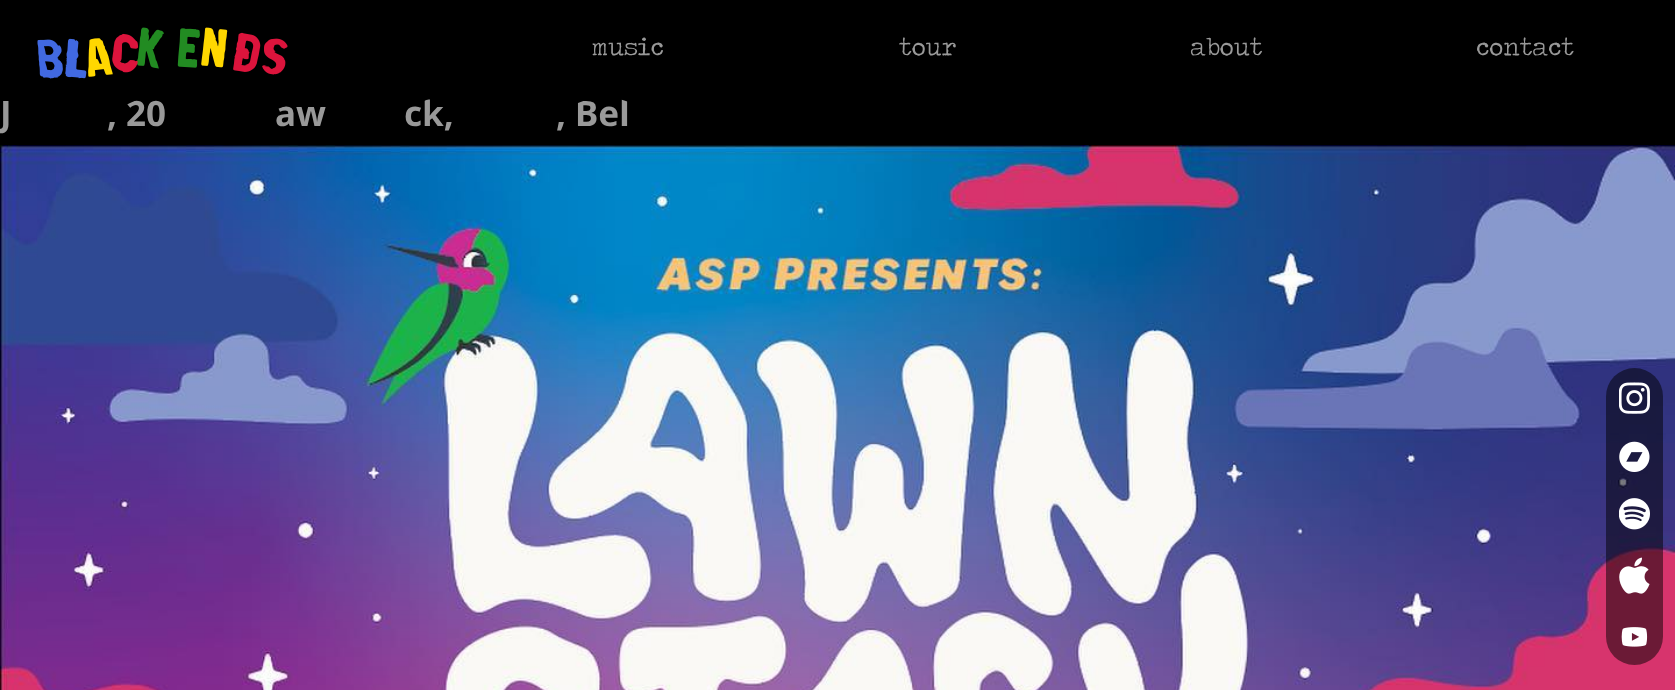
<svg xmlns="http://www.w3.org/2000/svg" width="1675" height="690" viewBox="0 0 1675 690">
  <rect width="100%" height="100%" fill="rgb(0,0,0)"/>
  <image x="37" y="27" width="251" height="52" href="pic1.png"/>
  <g font-family="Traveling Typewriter" font-size="25" fill="rgb(153,153,153)">
    <text x="592" y="55">music</text>
    <text x="899" y="55">tour</text>
    <text x="1190" y="55">about</text>
    <text x="1476" y="55">contact</text>
  </g>
  <g font-family="Noto Sans" font-size="35" font-weight="bold" fill="rgb(153,153,153)">
    <text x="0" y="126">J</text>
    <text x="107" y="126">, 20</text>
    <text x="275" y="126">aw</text>
    <text x="404" y="126">ck,</text>
    <text x="556" y="126">, Bel</text>
  </g>
  <path d="M150 94H0L67 131H68ZM218 131H217L151 94H318ZM352 131L318 94H602L503 131H502L436 96ZM721 131H719L604 94H837ZM872 131H871L838 94H1021ZM1156 131L1023 94H1172ZM1274 131H1272L1173 94H1356ZM1408 131H1407L1357 94H1523ZM1625 131L1525 94H1675Z" fill="rgb(0,0,0)" fill-rule="evenodd"/>
  <image x="0" y="145" width="1675" height="545" href="pic2.png"/>
  <rect x="1606" y="368" width="57" height="297" rx="28.5" fill="rgba(0,0,0,0.5)"/>
  <image x="1619" y="382" width="31" height="32" href="pic3.png"/>
  <image x="1619" y="441" width="31" height="31" href="pic4.png"/>
  <image x="1619" y="498" width="31" height="32" href="pic5.png"/>
  <image x="1619" y="557" width="31" height="37" href="pic6.png"/>
  <image x="1621" y="627" width="27" height="20" href="pic7.png"/>
</svg>
